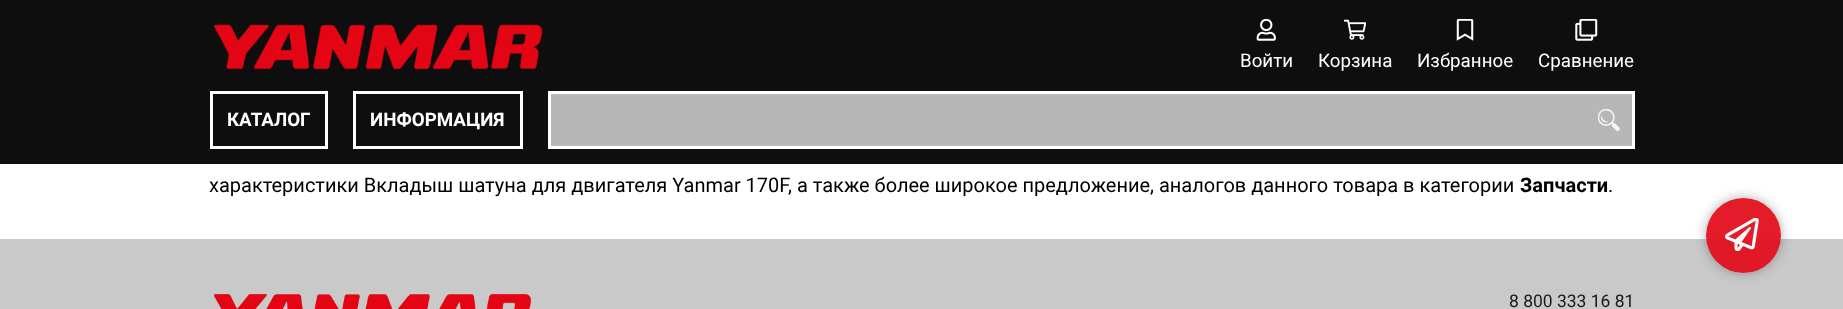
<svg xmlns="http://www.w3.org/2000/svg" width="1843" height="309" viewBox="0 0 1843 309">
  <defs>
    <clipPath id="clip1"><path d="M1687 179H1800V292H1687ZM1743.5 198C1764 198 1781 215 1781 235.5C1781 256 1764 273 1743.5 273C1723 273 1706 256 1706 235.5C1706 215 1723 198 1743.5 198Z" clip-rule="evenodd"/></clipPath>
  </defs>
  <rect width="100%" height="100%" fill="rgb(255,255,255)"/>
  <rect x="0" y="0" width="1843" height="164" fill="rgb(14,14,14)"/>
  <image x="214" y="24" width="329" height="46" href="pic1.png"/>
  <image x="1256" y="19" width="20" height="22" href="pic2.png"/>
  <text x="1240" y="67" font-family="Roboto" font-size="18.75" fill="rgb(255,255,255)">Войти</text>
  <image x="1344" y="19" width="22" height="21" href="pic3.png"/>
  <text x="1318" y="67" font-family="Roboto" font-size="18.75" fill="rgb(255,255,255)">Корзина</text>
  <image x="1456" y="19" width="18" height="22" href="pic4.png"/>
  <text x="1417" y="67" font-family="Roboto" font-size="18.75" fill="rgb(255,255,255)">Избранное</text>
  <image x="1575" y="19" width="23" height="22" href="pic5.png"/>
  <text x="1538" y="67" font-family="Roboto" font-size="18.75" fill="rgb(255,255,255)">Сравнение</text>
  <rect x="211.5" y="92.5" width="115" height="55" fill="none" stroke="rgb(255,255,255)" stroke-width="3"/>
  <text x="227" y="126" font-family="Roboto" font-size="18.75" font-weight="bold" fill="rgb(255,255,255)">КАТАЛОГ</text>
  <rect x="354.5" y="92.5" width="167" height="55" fill="none" stroke="rgb(255,255,255)" stroke-width="3"/>
  <text x="370" y="126" font-family="Roboto" font-size="18.75" font-weight="bold" fill="rgb(255,255,255)">ИНФОРМАЦИЯ</text>
  <rect x="549.5" y="92.5" width="1084" height="55" fill="rgb(183,183,183)" stroke="rgb(255,255,255)" stroke-width="3"/>
  <image x="1598" y="109" width="22" height="22" href="pic6.png"/>
  <text x="209" y="192" font-family="Roboto" font-size="20" fill="rgb(0,0,0)">характеристики Вкладыш шатуна для двигателя Yanmar 170F, а также более широкое предложение, аналогов данного товара в категории</text>
  <text x="1520" y="192" font-family="Roboto" font-size="20" font-weight="bold" fill="rgb(0,0,0)">Запчасти</text>
  <text x="1608" y="192" font-family="Roboto" font-size="20" fill="rgb(0,0,0)">.</text>
  <rect x="0" y="239" width="1843" height="70" fill="rgb(201,201,201)"/>
  <g clip-path="url(#clip1)">
    <rect x="1706" y="198" width="75" height="75" rx="37.5" fill="rgba(50,50,50,0.4)" filter="blur(6px)"/>
  </g>
  <circle cx="1743.5" cy="235.5" r="37.5" fill="rgba(226,13,27,0.94)"/>
  <image x="1725" y="218" width="34" height="33" href="pic7.png"/>
  <image x="214" y="294" width="318" height="15" href="pic8.png"/>
  <text x="1509" y="307" font-family="Roboto" font-size="17.5" fill="rgb(26,26,26)">8 800 333 16 81</text>
</svg>
